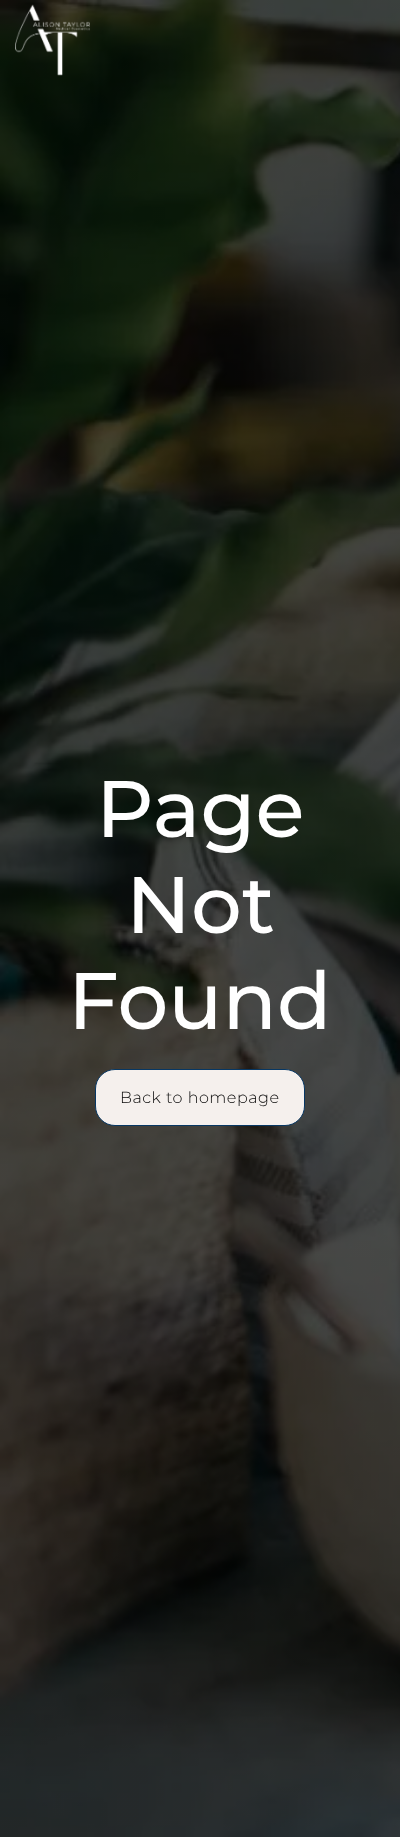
<svg xmlns="http://www.w3.org/2000/svg" width="400" height="1837" viewBox="0 0 400 1837">
  <rect width="100%" height="100%" fill="rgb(255,255,255)"/>
  <image x="0" y="0" width="400" height="1837" href="pic2.png"/>
  <image x="15" y="4" width="75" height="72" href="pic1.png"/>
  <g font-family="Montserrat" font-size="80" font-weight="500" fill="rgb(255,255,255)">
    <text x="96" y="837">Page</text>
    <text x="126" y="933">Not</text>
    <text x="68" y="1029">Found</text>
  </g>
  <rect x="95.5" y="1069.5" width="209" height="56" rx="19.5" fill="rgb(245,240,237)" stroke="rgb(7,55,99)"/>
  <text x="120" y="1103" font-family="Montserrat" font-size="16" font-weight="300" letter-spacing="0.5" fill="rgb(8,8,8)">Back to homepage</text>
</svg>
